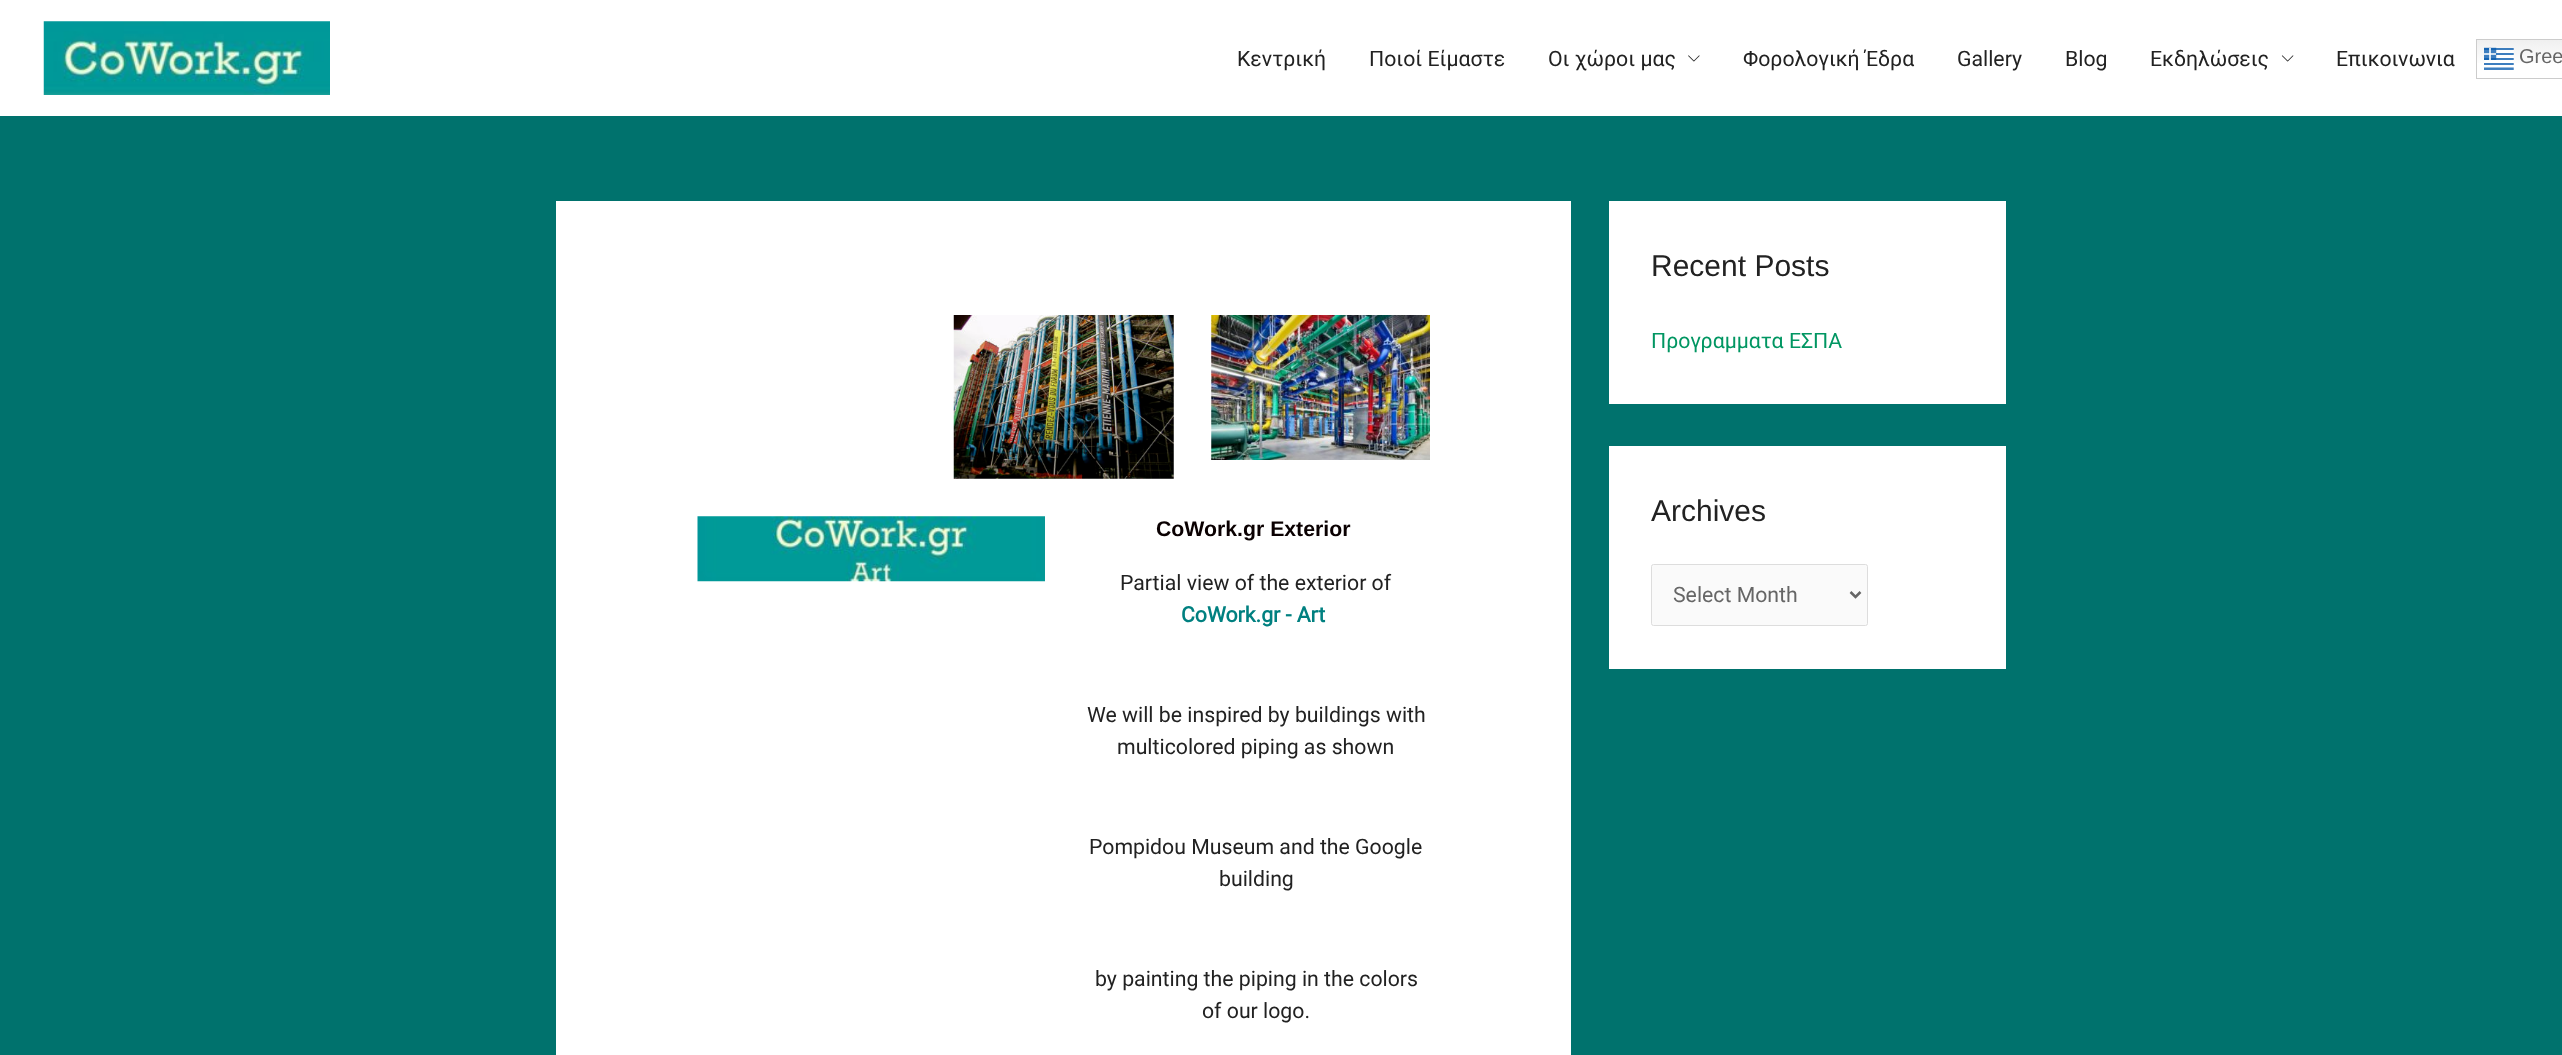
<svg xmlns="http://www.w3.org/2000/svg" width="2562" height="1055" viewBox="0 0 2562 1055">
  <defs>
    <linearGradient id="g1" gradientUnits="userSpaceOnUse" x1="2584" y1="39" x2="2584" y2="79"><stop offset="0" stop-color="rgb(239,239,239)"/><stop offset="0.7" stop-color="rgb(255,255,255)"/></linearGradient>
  </defs>
  <rect width="100%" height="100%" fill="rgb(0,114,109)"/>
  <rect x="0" y="0" width="2562" height="116" fill="rgb(255,255,255)"/>
  <image x="43" y="21" width="287" height="74" href="pic1.png"/>
  <g font-family="Roboto" font-size="21.25" fill="rgb(34,34,34)">
    <text x="1237" y="66">Κεντρική</text>
    <text x="1369" y="66">Ποιοί Είμαστε</text>
    <text x="1548" y="66">Oι χώροι μας</text>
  </g>
  <image x="1688" y="55" width="12" height="7" href="pic2.png"/>
  <g font-family="Roboto" font-size="21.25" fill="rgb(34,34,34)">
    <text x="1743" y="66">Φορολογική Έδρα</text>
    <text x="1957" y="66">Gallery</text>
    <text x="2065" y="66">Blog</text>
    <text x="2150" y="66">Eκδηλώσεις</text>
  </g>
  <image x="2281" y="55" width="13" height="7" href="pic3.png"/>
  <text x="2336" y="66" font-family="Roboto" font-size="21.25" fill="rgb(34,34,34)">Επικοινωνια</text>
  <rect x="2477" y="40" width="85" height="23" fill="url(#g1)"/>
  <rect x="2476.5" y="39.5" width="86" height="39" fill="none" stroke="rgb(204,204,204)"/>
  <image x="2484" y="47" width="30" height="23" href="pic4.png"/>
  <text x="2519" y="63" font-family="Liberation Sans" font-size="20" fill="rgb(102,102,102)">Gree</text>
  <rect x="1609" y="201" width="397" height="203" fill="rgb(255,255,255)"/>
  <text x="1651" y="276" font-family="Liberation Sans" font-size="30" fill="rgb(34,34,34)">Recent Posts</text>
  <text x="1651" y="348" font-family="Roboto" font-size="21.25" fill="rgb(1,150,98)">Προγραμματα ΕΣΠΑ</text>
  <rect x="1609" y="446" width="397" height="223" fill="rgb(255,255,255)"/>
  <text x="1651" y="521" font-family="Liberation Sans" font-size="30" fill="rgb(34,34,34)">Archives</text>
  <rect x="1651.5" y="564.5" width="216" height="61" rx="2" fill="rgb(250,250,250)" stroke="rgb(221,221,221)"/>
  <path d="M1850.5 592L1855.5 597L1860.5 592" fill="none" stroke="rgb(102,102,102)" stroke-width="2.5"/>
  <text x="1673" y="602" font-family="Roboto" font-size="21.25" fill="rgb(102,102,102)">Select Month</text>
  <rect x="556" y="201" width="1015" height="854" fill="rgb(255,255,255)"/>
  <image x="953" y="315" width="221" height="164" href="pic5.png"/>
  <image x="1211" y="315" width="219" height="145" href="pic6.png"/>
  <image x="697" y="516" width="348" height="66" href="pic7.png"/>
  <text x="1156" y="536" font-family="Liberation Sans" font-size="21.25" font-weight="bold" fill="rgb(10,0,1)">CoWork.gr Exterior</text>
  <text x="1120" y="590" font-family="Roboto" font-size="21.25" fill="rgb(34,34,34)">Partial view of the exterior of</text>
  <text x="1181" y="622" font-family="Roboto" font-size="21.25" font-weight="bold" fill="rgb(0,128,128)">CoWork.gr - Art</text>
  <g font-family="Roboto" font-size="21.25" fill="rgb(34,34,34)">
    <text x="1087" y="722">We will be inspired by buildings with</text>
    <text x="1117" y="754">multicolored piping as shown</text>
    <text x="1089" y="854">Pompidou Museum and the Google</text>
    <text x="1219" y="886">building</text>
    <text x="1095" y="986">by painting the piping in the colors</text>
    <text x="1202" y="1018">of our logo.</text>
  </g>
</svg>
